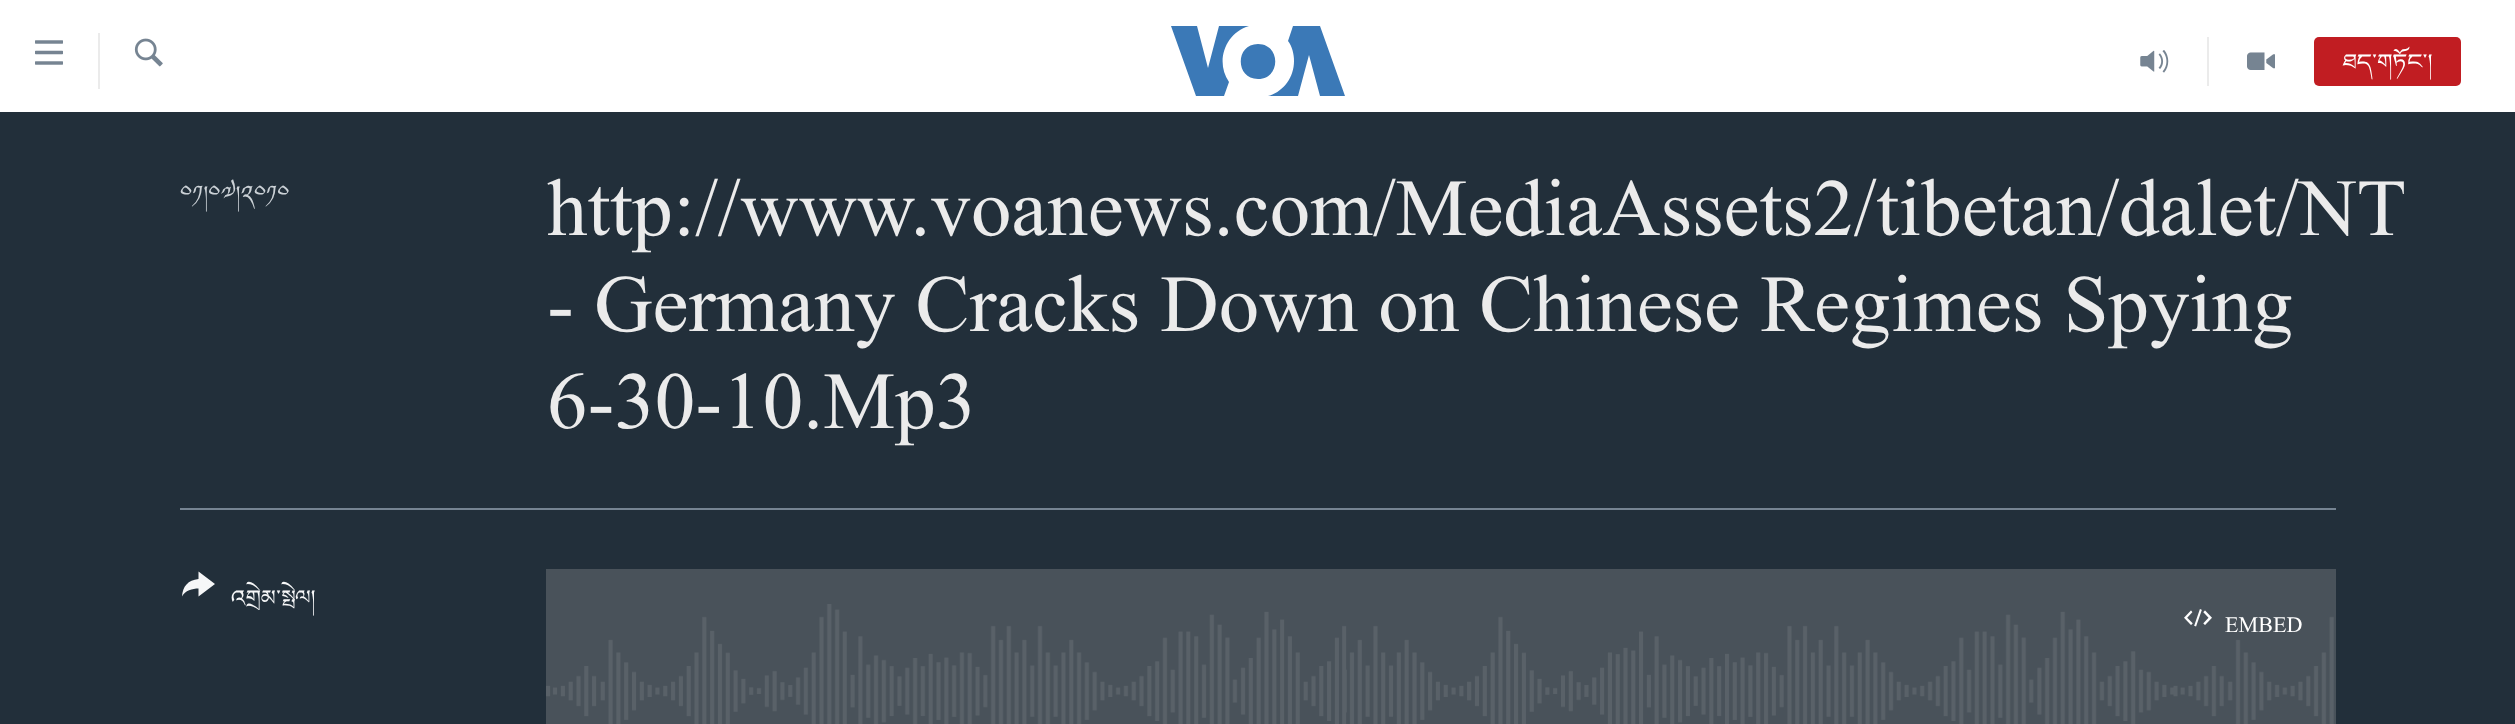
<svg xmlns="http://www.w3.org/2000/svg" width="2515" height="724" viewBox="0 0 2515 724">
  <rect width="100%" height="100%" fill="rgb(34,47,58)"/>
  <rect x="0" y="0" width="2515" height="112" fill="rgb(255,255,255)"/>
  <image x="35" y="40" width="28" height="25" href="pic1.png"/>
  <rect x="98" y="33" width="2" height="56" fill="rgb(235,235,235)"/>
  <image x="134" y="38" width="29" height="29" href="pic2.png"/>
  <path d="M1229 82L1224 96H1196L1171 26H1197L1208 68L1219 26H1249C1225 33 1215 62 1229 82ZM1258 44C1235 44 1235 79 1258 79C1281 79 1281 44 1258 44ZM1294 61C1294 78 1283 92 1268 96H1298L1309 55L1320 96H1345L1320 26H1293L1288 41C1292 46 1294 54 1294 61Z" fill="rgb(59,121,183)"/>
  <rect x="2207" y="37" width="2" height="49" fill="rgb(235,235,235)"/>
  <image x="2140" y="50" width="29" height="23" href="pic3.png"/>
  <image x="2247" y="52" width="28" height="18" href="pic4.png"/>
  <rect x="2314" y="37" width="147" height="49" rx="5" fill="rgb(193,29,34)"/>
  <text x="2342" y="66" font-family="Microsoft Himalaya" font-size="35" fill="rgb(255,255,255)">ཐད་གཏོང་།</text>
  <text x="180" y="198" font-family="Microsoft Himalaya" font-size="35" fill="rgb(203,209,214)">༠༡།༠༧།༢༠༡༠</text>
  <g font-family="Microsoft Himalaya" font-size="120.75" fill="rgb(235,235,235)">
    <text>
      <tspan x="547" y="235">http://www.voanews.com/MediaAssets2/tibetan/dalet/NT</tspan>
      <tspan x="547" y="331">- Germany Cracks Down on Chinese Regimes Spying</tspan>
      <tspan x="547" y="428">6-30-10.Mp3</tspan>
    </text>
  </g>
  <rect x="180" y="508" width="2156" height="2" fill="rgb(118,132,146)"/>
  <path d="M182 596.5C182.5 586.5 188 580 198.5 579V571.5L215 584L198.5 596.5V588.5C192.5 588.5 185 590.5 182 596.5Z" fill="rgb(246,247,248)"/>
  <text x="231" y="602" font-family="Microsoft Himalaya" font-size="35" fill="rgb(246,247,248)">འགྲེམ་སྤེལ།</text>
  <rect x="546" y="569" width="1790" height="155" fill="rgb(73,82,90)"/>
  <image x="546" y="604" width="1788" height="120" href="pic5.png"/>
  <image x="2184" y="609" width="28" height="18" href="pic6.png"/>
  <text x="2225" y="632" font-family="Microsoft Himalaya" font-size="33" fill="rgb(255,255,255)">EMBED</text>
</svg>
